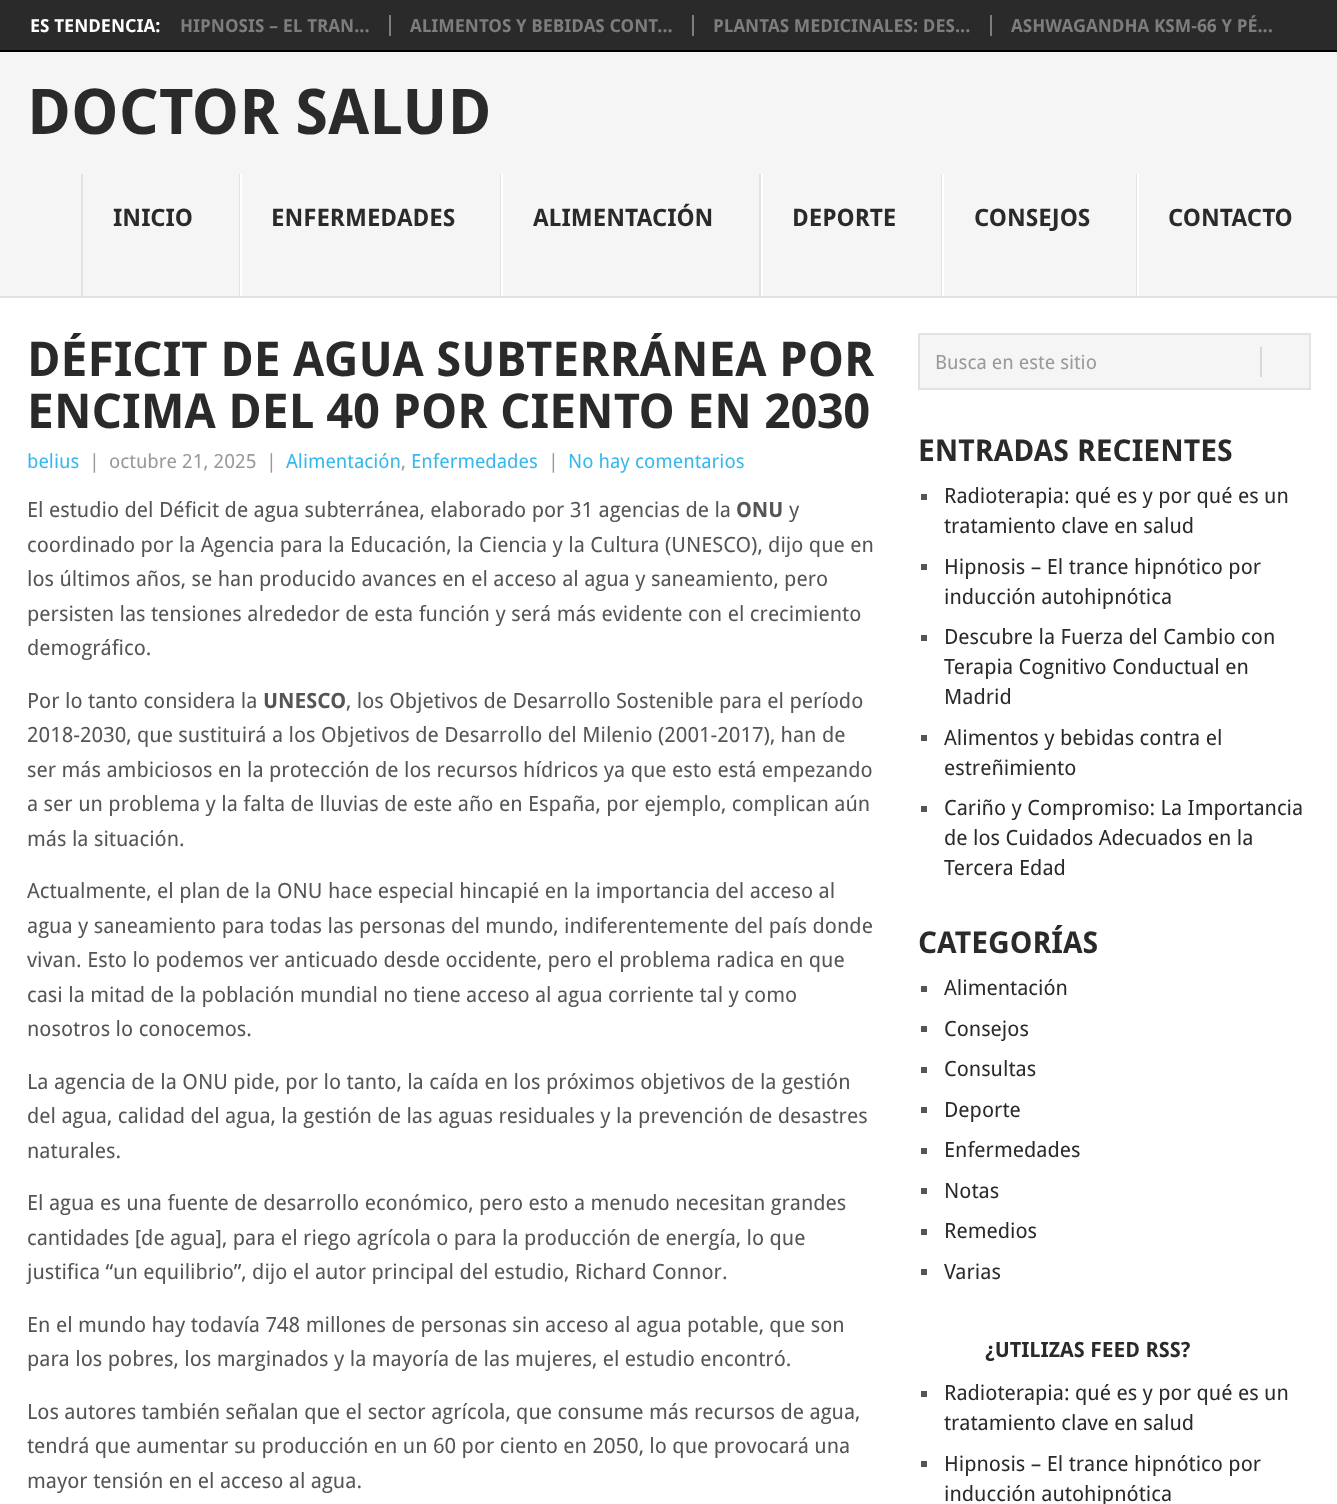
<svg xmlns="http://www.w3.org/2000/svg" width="1337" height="1504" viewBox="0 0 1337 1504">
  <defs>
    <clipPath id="clip1"><rect x="27" y="333" width="851" height="146"/></clipPath>
  </defs>
  <rect width="100%" height="100%" fill="rgb(255,255,255)"/>
  <rect x="0" y="0" width="1337" height="50" fill="rgb(42,42,42)"/>
  <rect x="0" y="50" width="1337" height="2" fill="rgb(0,0,0)"/>
  <text x="30" y="32" font-family="Droid Sans" font-size="18" font-weight="bold" fill="rgb(255,255,255)">ES TENDENCIA:</text>
  <rect x="389" y="15" width="2" height="21" fill="rgb(125,125,125)"/>
  <text x="180" y="32" font-family="Droid Sans" font-size="18" font-weight="bold" fill="rgb(125,125,125)">HIPNOSIS – EL TRAN...</text>
  <rect x="692" y="15" width="2" height="21" fill="rgb(125,125,125)"/>
  <text x="410" y="32" font-family="Droid Sans" font-size="18" font-weight="bold" fill="rgb(125,125,125)">ALIMENTOS Y BEBIDAS CONT...</text>
  <rect x="990" y="15" width="2" height="21" fill="rgb(125,125,125)"/>
  <g font-family="Droid Sans" font-size="18" font-weight="bold" fill="rgb(125,125,125)">
    <text x="713" y="32">PLANTAS MEDICINALES: DES...</text>
    <text x="1011" y="32">ASHWAGANDHA KSM-66 Y PÉ...</text>
  </g>
  <rect x="0" y="52" width="1337" height="244" fill="rgb(245,245,245)"/>
  <text x="27" y="134" font-family="Droid Sans" font-size="63" font-weight="bold" fill="rgb(42,42,42)">DOCTOR SALUD</text>
  <rect x="239" y="174" width="1" height="123" fill="rgb(226,226,226)"/>
  <rect x="81" y="174" width="2" height="123" fill="rgb(226,226,226)"/>
  <text x="113" y="226" font-family="Droid Sans" font-size="24" font-weight="bold" fill="rgb(42,42,42)">INICIO</text>
  <rect x="500" y="174" width="1" height="123" fill="rgb(226,226,226)"/>
  <rect x="240" y="174" width="2" height="123" fill="rgb(255,255,255)"/>
  <text x="271" y="226" font-family="Droid Sans" font-size="24" font-weight="bold" fill="rgb(42,42,42)">ENFERMEDADES</text>
  <rect x="759" y="174" width="2" height="123" fill="rgb(226,226,226)"/>
  <rect x="501" y="174" width="2" height="123" fill="rgb(255,255,255)"/>
  <text x="533" y="226" font-family="Droid Sans" font-size="24" font-weight="bold" fill="rgb(42,42,42)">ALIMENTACIÓN</text>
  <rect x="941" y="174" width="1" height="123" fill="rgb(226,226,226)"/>
  <rect x="761" y="174" width="2" height="123" fill="rgb(255,255,255)"/>
  <text x="792" y="226" font-family="Droid Sans" font-size="24" font-weight="bold" fill="rgb(42,42,42)">DEPORTE</text>
  <rect x="1136" y="174" width="1" height="123" fill="rgb(226,226,226)"/>
  <rect x="942" y="174" width="2" height="123" fill="rgb(255,255,255)"/>
  <text x="974" y="226" font-family="Droid Sans" font-size="24" font-weight="bold" fill="rgb(42,42,42)">CONSEJOS</text>
  <rect x="1137" y="174" width="2" height="123" fill="rgb(255,255,255)"/>
  <text x="1168" y="226" font-family="Droid Sans" font-size="24" font-weight="bold" fill="rgb(42,42,42)">CONTACTO</text>
  <rect x="0" y="296" width="1337" height="2" fill="rgb(226,226,226)"/>
  <g clip-path="url(#clip1)">
    <text x="27" y="376" font-family="Droid Sans" font-size="48" font-weight="bold" fill="rgb(42,42,42)">DÉFICIT DE AGUA SUBTERRÁNEA POR</text>
  </g>
  <text x="27" y="428" font-family="Droid Sans" font-size="48" font-weight="bold" fill="rgb(42,42,42)">ENCIMA DEL 40 POR CIENTO EN 2030</text>
  <text x="27" y="468" font-family="Droid Sans" font-size="19.5" fill="rgb(56,183,238)">belius</text>
  <g font-family="Droid Sans" font-size="19.5" fill="rgb(153,153,153)">
    <text x="89" y="468">|</text>
    <text x="109" y="468">octubre 21, 2025</text>
    <text x="266" y="468">|</text>
  </g>
  <text x="286" y="468" font-family="Droid Sans" font-size="19.5" fill="rgb(56,183,238)">Alimentación</text>
  <text x="401" y="468" font-family="Droid Sans" font-size="19.5" fill="rgb(153,153,153)">,</text>
  <text x="411" y="468" font-family="Droid Sans" font-size="19.5" fill="rgb(56,183,238)">Enfermedades</text>
  <text x="548" y="468" font-family="Droid Sans" font-size="19.5" fill="rgb(153,153,153)">|</text>
  <text x="568" y="468" font-family="Droid Sans" font-size="19.5" fill="rgb(56,183,238)">No hay comentarios</text>
  <text x="27" y="517" font-family="Droid Sans" font-size="21" fill="rgb(85,85,85)">El estudio del Déficit de agua subterránea, elaborado por 31 agencias de la</text>
  <text x="736" y="517" font-family="Droid Sans" font-size="21" font-weight="bold" fill="rgb(85,85,85)">ONU</text>
  <g font-family="Droid Sans" font-size="21" fill="rgb(85,85,85)">
    <text x="789" y="517">y</text>
    <text>
      <tspan x="27" y="552">coordinado por la Agencia para la Educación, la Ciencia y la Cultura (UNESCO), dijo que en</tspan>
      <tspan x="27" y="586">los últimos años, se han producido avances en el acceso al agua y saneamiento, pero</tspan>
      <tspan x="27" y="621">persisten las tensiones alrededor de esta función y será más evidente con el crecimiento</tspan>
      <tspan x="27" y="655">demográfico.</tspan>
    </text>
    <text x="27" y="708">Por lo tanto considera la</text>
  </g>
  <text x="263" y="708" font-family="Droid Sans" font-size="21" font-weight="bold" fill="rgb(85,85,85)">UNESCO</text>
  <g font-family="Droid Sans" font-size="21" fill="rgb(85,85,85)">
    <text x="346" y="708">, los Objetivos de Desarrollo Sostenible para el período</text>
    <text>
      <tspan x="27" y="742">2018-2030, que sustituirá a los Objetivos de Desarrollo del Milenio (2001-2017), han de</tspan>
      <tspan x="27" y="777">ser más ambiciosos en la protección de los recursos hídricos ya que esto está empezando</tspan>
      <tspan x="27" y="811">a ser un problema y la falta de lluvias de este año en España, por ejemplo, complican aún</tspan>
      <tspan x="27" y="846">más la situación.</tspan>
    </text>
    <text>
      <tspan x="27" y="898">Actualmente, el plan de la ONU hace especial hincapié en la importancia del acceso al</tspan>
      <tspan x="27" y="933">agua y saneamiento para todas las personas del mundo, indiferentemente del país donde</tspan>
      <tspan x="27" y="967">vivan. Esto lo podemos ver anticuado desde occidente, pero el problema radica en que</tspan>
      <tspan x="27" y="1002">casi la mitad de la población mundial no tiene acceso al agua corriente tal y como</tspan>
      <tspan x="27" y="1036">nosotros lo conocemos.</tspan>
    </text>
    <text>
      <tspan x="27" y="1089">La agencia de la ONU pide, por lo tanto, la caída en los próximos objetivos de la gestión</tspan>
      <tspan x="27" y="1123">del agua, calidad del agua, la gestión de las aguas residuales y la prevención de desastres</tspan>
      <tspan x="27" y="1158">naturales.</tspan>
    </text>
    <text>
      <tspan x="27" y="1210">El agua es una fuente de desarrollo económico, pero esto a menudo necesitan grandes</tspan>
      <tspan x="27" y="1245">cantidades [de agua], para el riego agrícola o para la producción de energía, lo que</tspan>
      <tspan x="27" y="1279">justifica “un equilibrio”, dijo el autor principal del estudio, Richard Connor.</tspan>
    </text>
    <text>
      <tspan x="27" y="1332">En el mundo hay todavía 748 millones de personas sin acceso al agua potable, que son</tspan>
      <tspan x="27" y="1366">para los pobres, los marginados y la mayoría de las mujeres, el estudio encontró.</tspan>
    </text>
    <text>
      <tspan x="27" y="1419">Los autores también señalan que el sector agrícola, que consume más recursos de agua,</tspan>
      <tspan x="27" y="1453">tendrá que aumentar su producción en un 60 por ciento en 2050, lo que provocará una</tspan>
      <tspan x="27" y="1488">mayor tensión en el acceso al agua.</tspan>
    </text>
  </g>
  <rect x="919" y="334" width="391" height="55" fill="rgb(245,245,245)" stroke="rgb(226,226,226)" stroke-width="2"/>
  <text x="935" y="369" font-family="Droid Sans" font-size="19.5" fill="rgb(153,153,153)">Busca en este sitio</text>
  <rect x="1260" y="347" width="2" height="30" fill="rgb(216,216,216)"/>
  <text x="918" y="461" font-family="Droid Sans" font-size="30" font-weight="bold" fill="rgb(42,42,42)">ENTRADAS RECIENTES</text>
  <rect x="921" y="494" width="6" height="6" fill="rgb(85,85,85)"/>
  <g font-family="Droid Sans" font-size="21" fill="rgb(42,42,42)">
    <text>
      <tspan x="944" y="503">Radioterapia: qué es y por qué es un</tspan>
      <tspan x="944" y="533">tratamiento clave en salud</tspan>
    </text>
  </g>
  <rect x="921" y="564" width="6" height="6" fill="rgb(85,85,85)"/>
  <g font-family="Droid Sans" font-size="21" fill="rgb(42,42,42)">
    <text>
      <tspan x="944" y="574">Hipnosis – El trance hipnótico por</tspan>
      <tspan x="944" y="604">inducción autohipnótica</tspan>
    </text>
  </g>
  <rect x="921" y="635" width="6" height="6" fill="rgb(85,85,85)"/>
  <g font-family="Droid Sans" font-size="21" fill="rgb(42,42,42)">
    <text>
      <tspan x="944" y="644">Descubre la Fuerza del Cambio con</tspan>
      <tspan x="944" y="674">Terapia Cognitivo Conductual en</tspan>
      <tspan x="944" y="704">Madrid</tspan>
    </text>
  </g>
  <rect x="921" y="735" width="6" height="6" fill="rgb(85,85,85)"/>
  <g font-family="Droid Sans" font-size="21" fill="rgb(42,42,42)">
    <text>
      <tspan x="944" y="745">Alimentos y bebidas contra el</tspan>
      <tspan x="944" y="775">estreñimiento</tspan>
    </text>
  </g>
  <rect x="921" y="806" width="6" height="6" fill="rgb(85,85,85)"/>
  <g font-family="Droid Sans" font-size="21" fill="rgb(42,42,42)">
    <text>
      <tspan x="944" y="815">Cariño y Compromiso: La Importancia</tspan>
      <tspan x="944" y="845">de los Cuidados Adecuados en la</tspan>
      <tspan x="944" y="875">Tercera Edad</tspan>
    </text>
  </g>
  <text x="918" y="953" font-family="Droid Sans" font-size="30" font-weight="bold" fill="rgb(42,42,42)">CATEGORÍAS</text>
  <rect x="921" y="986" width="6" height="6" fill="rgb(85,85,85)"/>
  <text x="944" y="995" font-family="Droid Sans" font-size="21" fill="rgb(42,42,42)">Alimentación</text>
  <rect x="921" y="1026" width="6" height="6" fill="rgb(85,85,85)"/>
  <text x="944" y="1036" font-family="Droid Sans" font-size="21" fill="rgb(42,42,42)">Consejos</text>
  <rect x="921" y="1067" width="6" height="6" fill="rgb(85,85,85)"/>
  <text x="944" y="1076" font-family="Droid Sans" font-size="21" fill="rgb(42,42,42)">Consultas</text>
  <rect x="921" y="1107" width="6" height="6" fill="rgb(85,85,85)"/>
  <text x="944" y="1117" font-family="Droid Sans" font-size="21" fill="rgb(42,42,42)">Deporte</text>
  <rect x="921" y="1148" width="6" height="6" fill="rgb(85,85,85)"/>
  <text x="944" y="1157" font-family="Droid Sans" font-size="21" fill="rgb(42,42,42)">Enfermedades</text>
  <rect x="921" y="1188" width="6" height="6" fill="rgb(85,85,85)"/>
  <text x="944" y="1198" font-family="Droid Sans" font-size="21" fill="rgb(42,42,42)">Notas</text>
  <rect x="921" y="1229" width="6" height="6" fill="rgb(85,85,85)"/>
  <text x="944" y="1238" font-family="Droid Sans" font-size="21" fill="rgb(42,42,42)">Remedios</text>
  <rect x="921" y="1269" width="6" height="6" fill="rgb(85,85,85)"/>
  <text x="944" y="1279" font-family="Droid Sans" font-size="21" fill="rgb(42,42,42)">Varias</text>
  <text x="985" y="1357" font-family="Droid Sans" font-size="21" font-weight="bold" fill="rgb(42,42,42)">¿UTILIZAS FEED RSS?</text>
  <rect x="921" y="1391" width="6" height="6" fill="rgb(85,85,85)"/>
  <g font-family="Droid Sans" font-size="21" fill="rgb(42,42,42)">
    <text>
      <tspan x="944" y="1400">Radioterapia: qué es y por qué es un</tspan>
      <tspan x="944" y="1430">tratamiento clave en salud</tspan>
    </text>
  </g>
  <rect x="921" y="1461" width="6" height="6" fill="rgb(85,85,85)"/>
  <g font-family="Droid Sans" font-size="21" fill="rgb(42,42,42)">
    <text>
      <tspan x="944" y="1471">Hipnosis – El trance hipnótico por</tspan>
      <tspan x="944" y="1501">inducción autohipnótica</tspan>
    </text>
  </g>
</svg>
